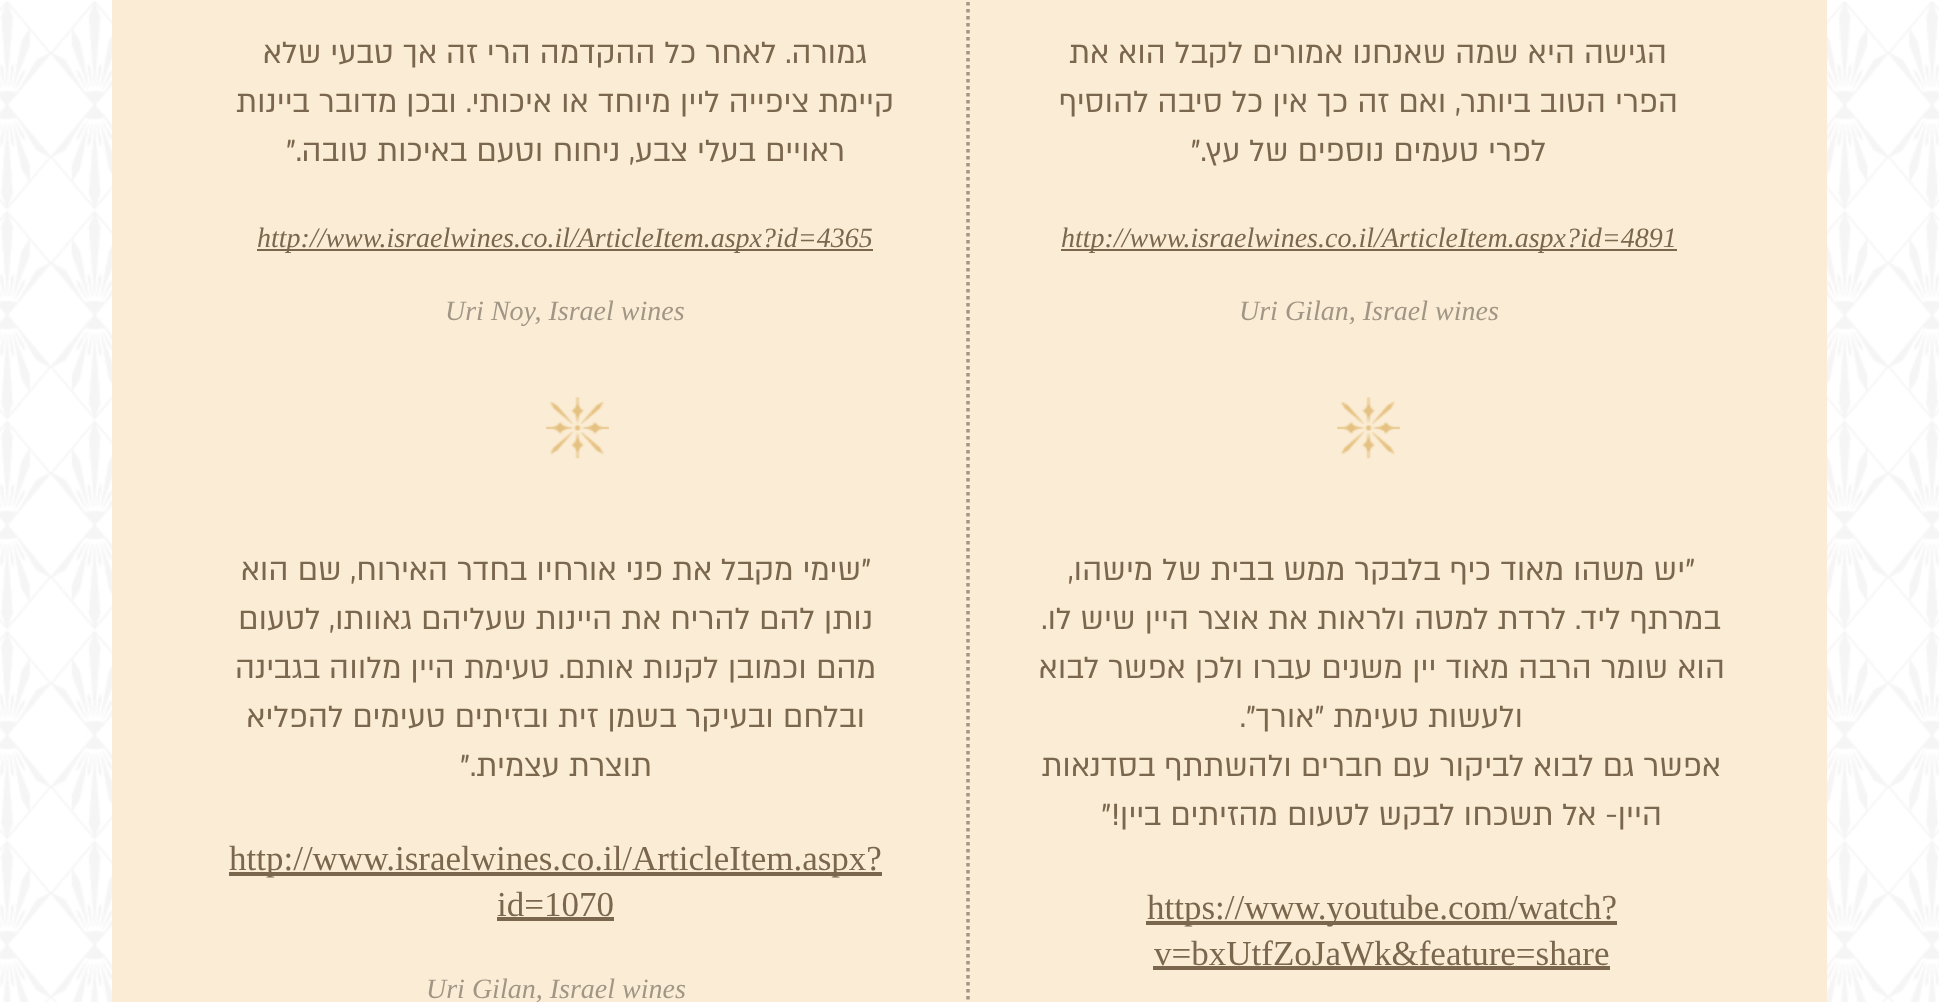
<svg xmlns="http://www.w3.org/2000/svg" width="1939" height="1002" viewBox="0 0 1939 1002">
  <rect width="100%" height="100%" fill="rgb(255,255,255)"/>
  <image x="0" y="1" width="1939" height="1001" href="pic1.png"/>
  <rect x="112" y="0" width="1715" height="1002" fill="rgb(251,237,213)"/>
  <g font-family="'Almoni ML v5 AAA'" font-size="35" direction="rtl" fill="rgb(122,103,78)">
    <text x="1667" y="63">הגישה היא שמה שאנחנו אמורים לקבל הוא את</text>
    <text x="1678" y="112">הפרי הטוב ביותר, ואם זה כך אין כל סיבה להוסיף</text>
    <text x="1546" y="161">לפרי טעמים נוספים של עץ."</text>
  </g>
  <rect x="1061" y="249" width="616" height="2" fill="rgb(122,103,78)"/>
  <text x="1061" y="247" font-family="Liberation Serif" font-size="28" font-style="italic" fill="rgb(122,103,78)">http://www.israelwines.co.il/ArticleItem.aspx?id=4891</text>
  <text x="1239" y="320" font-family="Liberation Serif" font-size="28" font-style="italic" fill="rgb(161,150,134)">Uri Gilan, Israel wines</text>
  <path d="M968-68V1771" fill="none" stroke="rgb(161,150,134)" stroke-width="3.5" stroke-dasharray="3.5 3.5"/>
  <g font-family="'Almoni ML v5 AAA'" font-size="35" direction="rtl" fill="rgb(122,103,78)">
    <text x="867" y="63">גמורה. לאחר כל ההקדמה הרי זה אך טבעי שלא</text>
    <text x="894" y="112">קיימת ציפייה ליין מיוחד או איכותי. ובכן מדובר ביינות</text>
    <text x="845" y="161">ראויים בעלי צבע, ניחוח וטעם באיכות טובה."</text>
  </g>
  <rect x="257" y="249" width="616" height="2" fill="rgb(122,103,78)"/>
  <text x="257" y="247" font-family="Liberation Serif" font-size="28" font-style="italic" fill="rgb(122,103,78)">http://www.israelwines.co.il/ArticleItem.aspx?id=4365</text>
  <text x="445" y="320" font-family="Liberation Serif" font-size="28" font-style="italic" fill="rgb(161,150,134)">Uri Noy, Israel wines</text>
  <image x="1337" y="397" width="63" height="62" href="pic2.png"/>
  <image x="546" y="397" width="63" height="62" href="pic3.png"/>
  <g font-family="'Almoni ML v5 AAA'" font-size="35" direction="rtl" fill="rgb(122,103,78)">
    <text x="1695" y="580">"יש משהו מאוד כיף בלבקר ממש בבית של מישהו,</text>
    <text x="1721" y="629">במרתף ליד. לרדת למטה ולראות את אוצר היין שיש לו.</text>
    <text x="1725" y="678">הוא שומר הרבה מאוד יין משנים עברו ולכן אפשר לבוא</text>
    <text x="1523" y="727">ולעשות טעימת "אורך".</text>
    <text x="1721" y="776">אפשר גם לבוא לביקור עם חברים ולהשתתף בסדנאות</text>
    <text x="1662" y="825">היין- אל תשכחו לבקש לטעום מהזיתים ביין!"</text>
  </g>
  <rect x="1146" y="921" width="471" height="4" fill="rgb(122,103,78)"/>
  <g font-family="Liberation Serif" font-size="35" fill="rgb(122,103,78)">
    <text x="1147" y="919">https://www.youtube.com/watch?</text>
    <text x="1154" y="965">v=bxUtfZoJaWk&amp;feature=share</text>
  </g>
  <rect x="1153" y="966" width="457" height="4" fill="rgb(122,103,78)"/>
  <g font-family="'Almoni ML v5 AAA'" font-size="35" direction="rtl" fill="rgb(122,103,78)">
    <text x="871" y="580">"שימי מקבל את פני אורחיו בחדר האירוח, שם הוא</text>
    <text x="873" y="629">נותן להם להריח את היינות שעליהם גאוותו, לטעום</text>
    <text x="876" y="678">מהם וכמובן לקנות אותם. טעימת היין מלווה בגבינה</text>
    <text x="865" y="727">ובלחם ובעיקר בשמן זית ובזיתים טעימים להפליא</text>
    <text x="652" y="776">תוצרת עצמית."</text>
  </g>
  <rect x="229" y="872" width="653" height="4" fill="rgb(122,103,78)"/>
  <g font-family="Liberation Serif" font-size="35" fill="rgb(122,103,78)">
    <text x="229" y="870">http://www.israelwines.co.il/ArticleItem.aspx?</text>
    <text x="497" y="916">id=1070</text>
  </g>
  <rect x="497" y="917" width="117" height="4" fill="rgb(122,103,78)"/>
  <text x="426" y="998" font-family="Liberation Serif" font-size="28" font-style="italic" fill="rgb(161,150,134)">Uri Gilan, Israel wines</text>
</svg>
